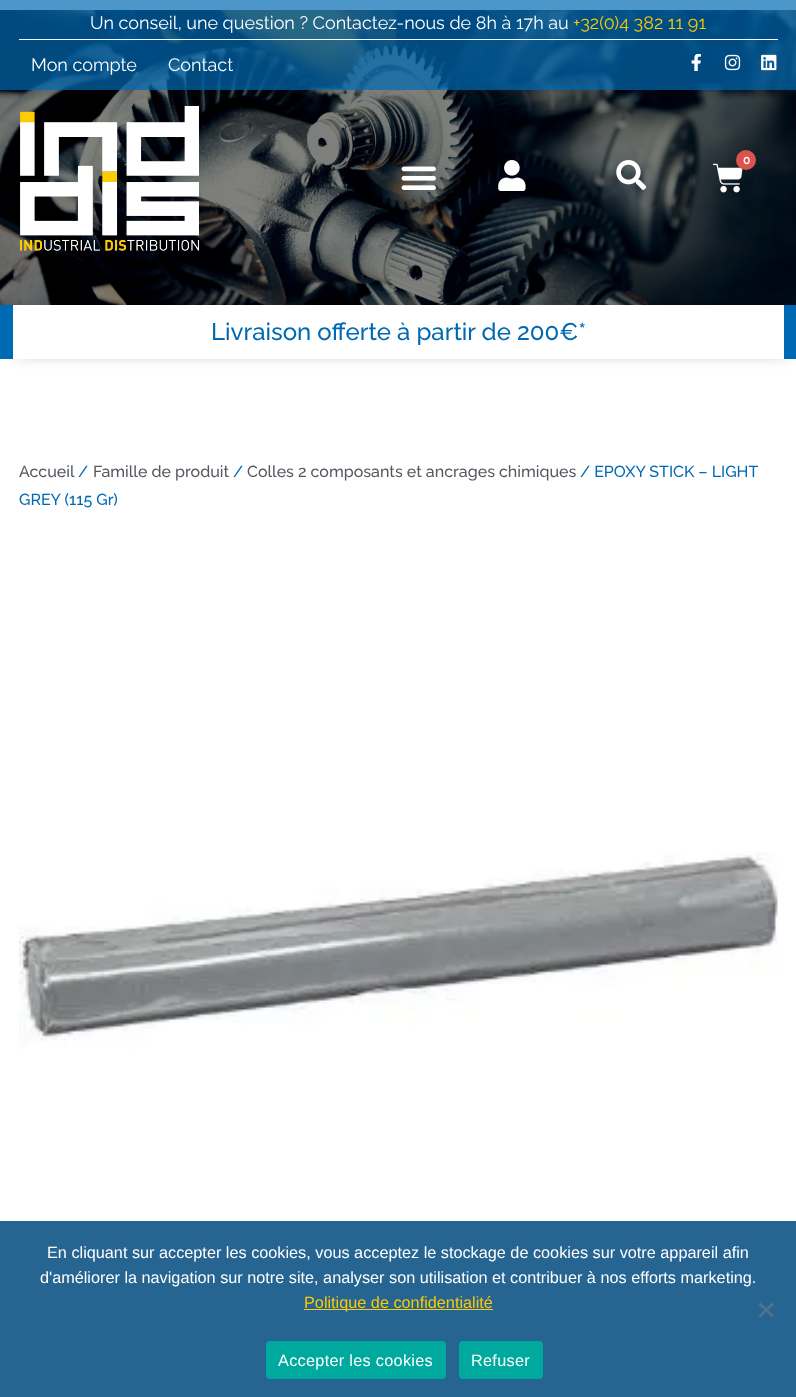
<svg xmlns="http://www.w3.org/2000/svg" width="796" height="1397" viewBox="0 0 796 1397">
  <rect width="100%" height="100%" fill="rgb(255,255,255)"/>
  <image x="0" y="10" width="796" height="295" href="pic1.png"/>
  <rect x="0" y="0" width="796" height="90" fill="rgba(0,105,180,0.7)"/>
  <rect x="19" y="39" width="759" height="1" fill="rgb(255,255,255)"/>
  <text x="90" y="29" font-family="Raleway" font-size="18" fill="rgb(255,255,255)">Un conseil, une question ? Contactez-nous de 8h à 17h au</text>
  <text x="573" y="29" font-family="Raleway" font-size="18" fill="rgb(253,203,5)">+32(0)4 382 11 91</text>
  <g font-family="Raleway" font-size="18" fill="rgb(255,255,255)">
    <text x="31" y="71">Mon compte</text>
    <text x="168" y="71">Contact</text>
  </g>
  <image x="691" y="54" width="10" height="17" href="pic2.png"/>
  <image x="724" y="54" width="17" height="17" href="pic3.png"/>
  <image x="761" y="54" width="16" height="17" href="pic4.png"/>
  <image x="20" y="106" width="179" height="145" href="pic5.png"/>
  <image x="498" y="160" width="28" height="31" href="pic6.png"/>
  <image x="616" y="160" width="30" height="30" href="pic7.png"/>
  <image x="713" y="163" width="30" height="30" href="pic8.png"/>
  <circle cx="746" cy="160" r="10" fill="rgb(217,83,79)"/>
  <text x="743" y="164" font-family="Raleway" font-size="12" font-weight="600" fill="rgb(255,255,255)">0</text>
  <image x="401" y="166" width="35" height="24" href="pic9.png"/>
  <rect x="16" y="321" width="772" height="29" fill="rgba(0,0,0,0.5)" filter="blur(9px)"/>
  <rect x="13" y="305" width="771" height="54" fill="rgb(255,255,255)"/>
  <rect x="784" y="305" width="12" height="54" fill="rgb(0,105,180)"/>
  <rect x="0" y="305" width="13" height="54" fill="rgb(0,105,180)"/>
  <text x="211" y="340" font-family="Raleway" font-size="24" font-weight="500" fill="rgb(0,105,180)">Livraison offerte à partir de 200€*</text>
  <text x="19" y="477" font-family="Raleway" font-size="16" font-weight="500" fill="rgb(84,89,95)">Accueil</text>
  <text x="78" y="477" font-family="Raleway" font-size="16" font-weight="500" fill="rgb(0,105,180)">/</text>
  <text x="93" y="477" font-family="Raleway" font-size="16" font-weight="500" fill="rgb(84,89,95)">Famille de produit</text>
  <text x="233" y="477" font-family="Raleway" font-size="16" font-weight="500" fill="rgb(0,105,180)">/</text>
  <text x="247" y="477" font-family="Raleway" font-size="16" font-weight="500" fill="rgb(84,89,95)">Colles 2 composants et ancrages chimiques</text>
  <g font-family="Raleway" font-size="16" font-weight="500" fill="rgb(0,105,180)">
    <text x="580" y="477">/ EPOXY STICK – LIGHT</text>
    <text x="19" y="505">GREY (115 Gr)</text>
  </g>
  <image x="18" y="852" width="760" height="197" href="pic10.png"/>
  <rect x="0" y="1221" width="796" height="176" fill="rgb(38,100,146)"/>
  <g font-family="Liberation Sans" font-size="16.25" fill="rgb(255,255,255)">
    <text x="47" y="1258">En cliquant sur accepter les cookies, vous acceptez le stockage de cookies sur votre appareil afin</text>
    <text x="40" y="1283">d'améliorer la navigation sur notre site, analyser son utilisation et contribuer à nos efforts marketing.</text>
  </g>
  <rect x="304" y="1309" width="189" height="1" fill="rgb(253,203,5)"/>
  <text x="304" y="1308" font-family="Liberation Sans" font-size="16.25" fill="rgb(253,203,5)">Politique de confidentialité</text>
  <path d="M772 1302.5L774 1304.5L760.5 1317.5L758.5 1315.5Z" fill="rgb(83,114,137)"/>
  <path d="M758.5 1304.5L760.5 1302.5L774 1315.5L772 1317.5Z" fill="rgb(83,114,137)"/>
  <rect x="266" y="1341" width="180" height="38" rx="4" fill="rgb(0,169,157)"/>
  <text x="278" y="1366" font-family="Liberation Sans" font-size="16.25" letter-spacing="0.3" fill="rgb(255,255,255)">Accepter les cookies</text>
  <rect x="459" y="1341" width="84" height="38" rx="4" fill="rgb(0,169,157)"/>
  <text x="471" y="1366" font-family="Liberation Sans" font-size="16.25" letter-spacing="0.3" fill="rgb(255,255,255)">Refuser</text>
</svg>
